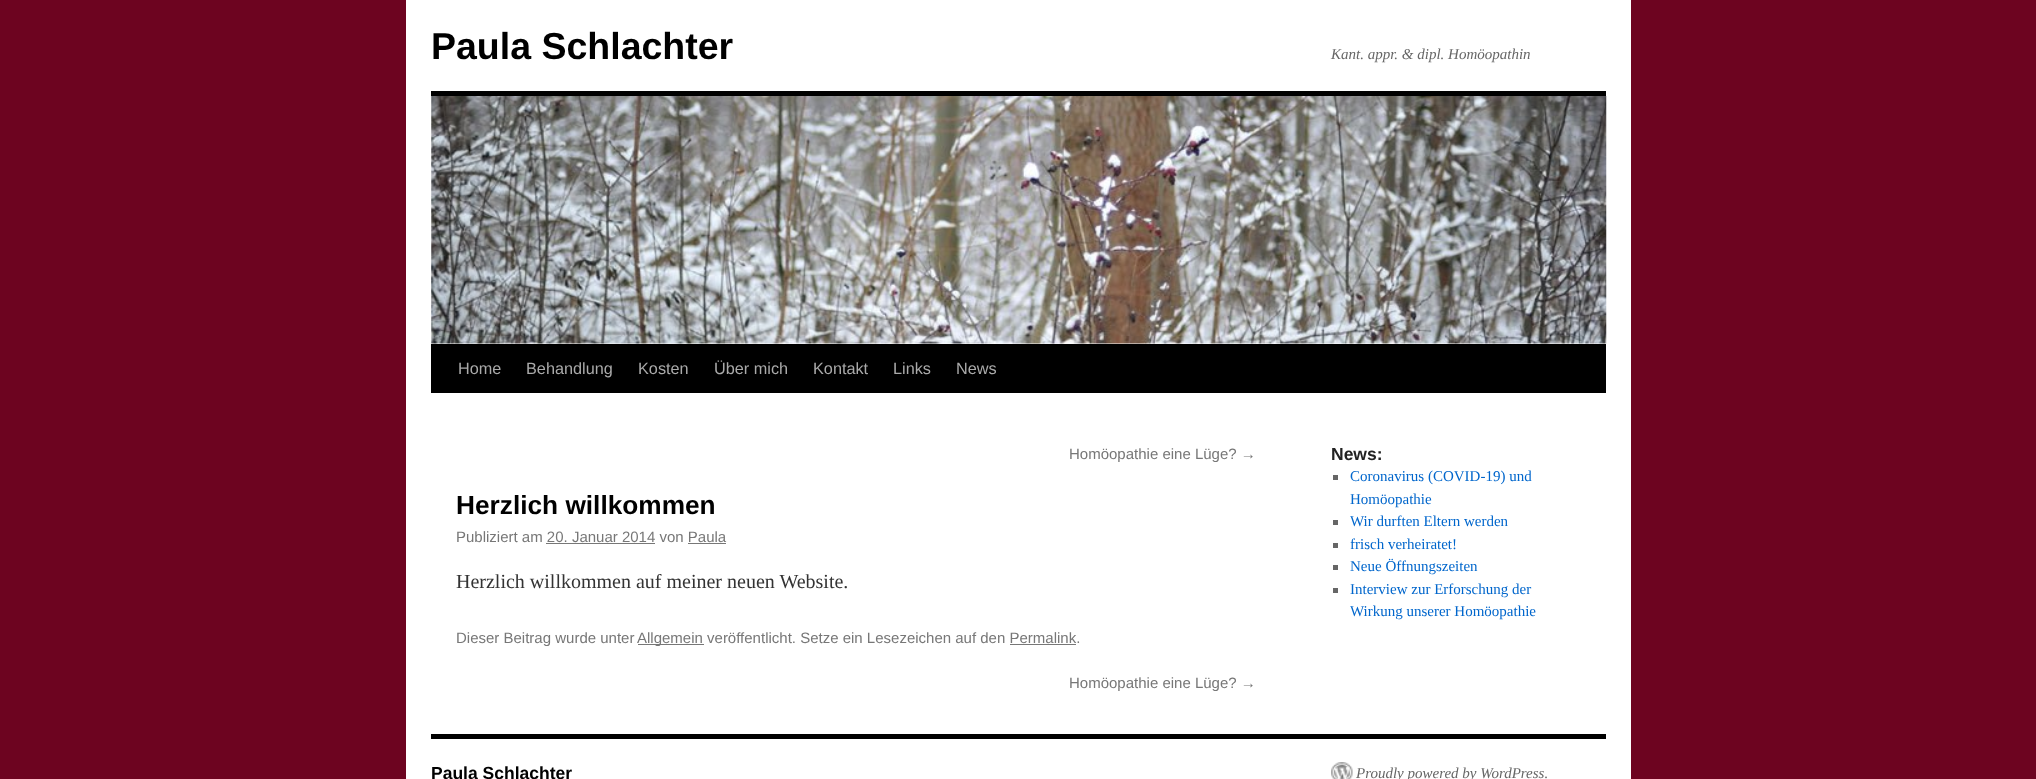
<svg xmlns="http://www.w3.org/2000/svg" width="2036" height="779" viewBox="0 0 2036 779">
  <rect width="100%" height="100%" fill="rgb(109,4,32)"/>
  <rect x="406" y="0" width="1225" height="779" fill="rgb(255,255,255)"/>
  <text x="431" y="59" font-family="Liberation Sans" font-size="37.5" font-weight="bold" fill="rgb(0,0,0)">Paula Schlachter</text>
  <text x="1331" y="59" font-family="Liberation Serif" font-size="15" font-style="italic" fill="rgb(102,102,102)">Kant. appr. &amp; dipl. Homöopathin</text>
  <rect x="431" y="91" width="1175" height="5" fill="rgb(0,0,0)"/>
  <rect x="431" y="344" width="1175" height="49" fill="rgb(0,0,0)"/>
  <image x="431" y="96" width="1176" height="248" href="pic1.png"/>
  <g font-family="Liberation Sans" font-size="16.25" fill="rgb(170,170,170)">
    <text x="458" y="374">Home</text>
    <text x="526" y="374">Behandlung</text>
    <text x="638" y="374">Kosten</text>
    <text x="714" y="374">Über mich</text>
    <text x="813" y="374">Kontakt</text>
    <text x="893" y="374">Links</text>
    <text x="956" y="374">News</text>
  </g>
  <text x="1069" y="459" font-family="Liberation Sans" font-size="15" fill="rgb(119,119,119)">Homöopathie eine Lüge? →</text>
  <text x="456" y="514" font-family="Liberation Sans" font-size="26.25" font-weight="bold" fill="rgb(0,0,0)">Herzlich willkommen</text>
  <text x="456" y="542" font-family="Liberation Sans" font-size="15" fill="rgb(119,119,119)">Publiziert am 20. Januar 2014 von Paula</text>
  <rect x="546" y="543" width="109" height="1" fill="rgb(119,119,119)"/>
  <rect x="688" y="543" width="38" height="1" fill="rgb(119,119,119)"/>
  <text x="456" y="588" font-family="Liberation Serif" font-size="20" fill="rgb(51,51,51)">Herzlich willkommen auf meiner neuen Website.</text>
  <text x="456" y="643" font-family="Liberation Sans" font-size="15" fill="rgb(119,119,119)">Dieser Beitrag wurde unter</text>
  <rect x="638" y="644" width="66" height="1" fill="rgb(119,119,119)"/>
  <text x="637" y="643" font-family="Liberation Sans" font-size="15" fill="rgb(119,119,119)">Allgemein veröffentlicht. Setze ein Lesezeichen auf den Permalink.</text>
  <rect x="1010" y="644" width="66" height="1" fill="rgb(119,119,119)"/>
  <text x="1069" y="688" font-family="Liberation Sans" font-size="15" fill="rgb(119,119,119)">Homöopathie eine Lüge? →</text>
  <text x="1331" y="460" font-family="Liberation Sans" font-size="17.5" font-weight="bold" fill="rgb(34,34,34)">News:</text>
  <rect x="1333" y="475" width="5" height="5" fill="rgb(102,102,102)"/>
  <g font-family="Liberation Serif" font-size="15" fill="rgb(0,102,204)">
    <text>
      <tspan x="1350" y="481">Coronavirus (COVID-19) und</tspan>
      <tspan x="1350" y="504">Homöopathie</tspan>
    </text>
  </g>
  <rect x="1333" y="520" width="5" height="5" fill="rgb(102,102,102)"/>
  <text x="1350" y="526" font-family="Liberation Serif" font-size="15" fill="rgb(0,102,204)">Wir durften Eltern werden</text>
  <rect x="1333" y="543" width="5" height="5" fill="rgb(102,102,102)"/>
  <text x="1350" y="549" font-family="Liberation Serif" font-size="15" fill="rgb(0,102,204)">frisch verheiratet!</text>
  <rect x="1333" y="565" width="5" height="5" fill="rgb(102,102,102)"/>
  <text x="1350" y="571" font-family="Liberation Serif" font-size="15" fill="rgb(0,102,204)">Neue Öffnungszeiten</text>
  <rect x="1333" y="588" width="5" height="5" fill="rgb(102,102,102)"/>
  <g font-family="Liberation Serif" font-size="15" fill="rgb(0,102,204)">
    <text>
      <tspan x="1350" y="594">Interview zur Erforschung der</tspan>
      <tspan x="1350" y="616">Wirkung unserer Homöopathie</tspan>
    </text>
  </g>
  <rect x="431" y="734" width="1175" height="5" fill="rgb(0,0,0)"/>
  <text x="431" y="779" font-family="Liberation Sans" font-size="17.5" font-weight="bold" fill="rgb(0,0,0)">Paula Schlachter</text>
  <image x="1331" y="762" width="22" height="17" href="pic2.png"/>
  <text x="1356" y="778" font-family="Liberation Serif" font-size="15" font-style="italic" fill="rgb(102,102,102)">Proudly powered by WordPress.</text>
</svg>
